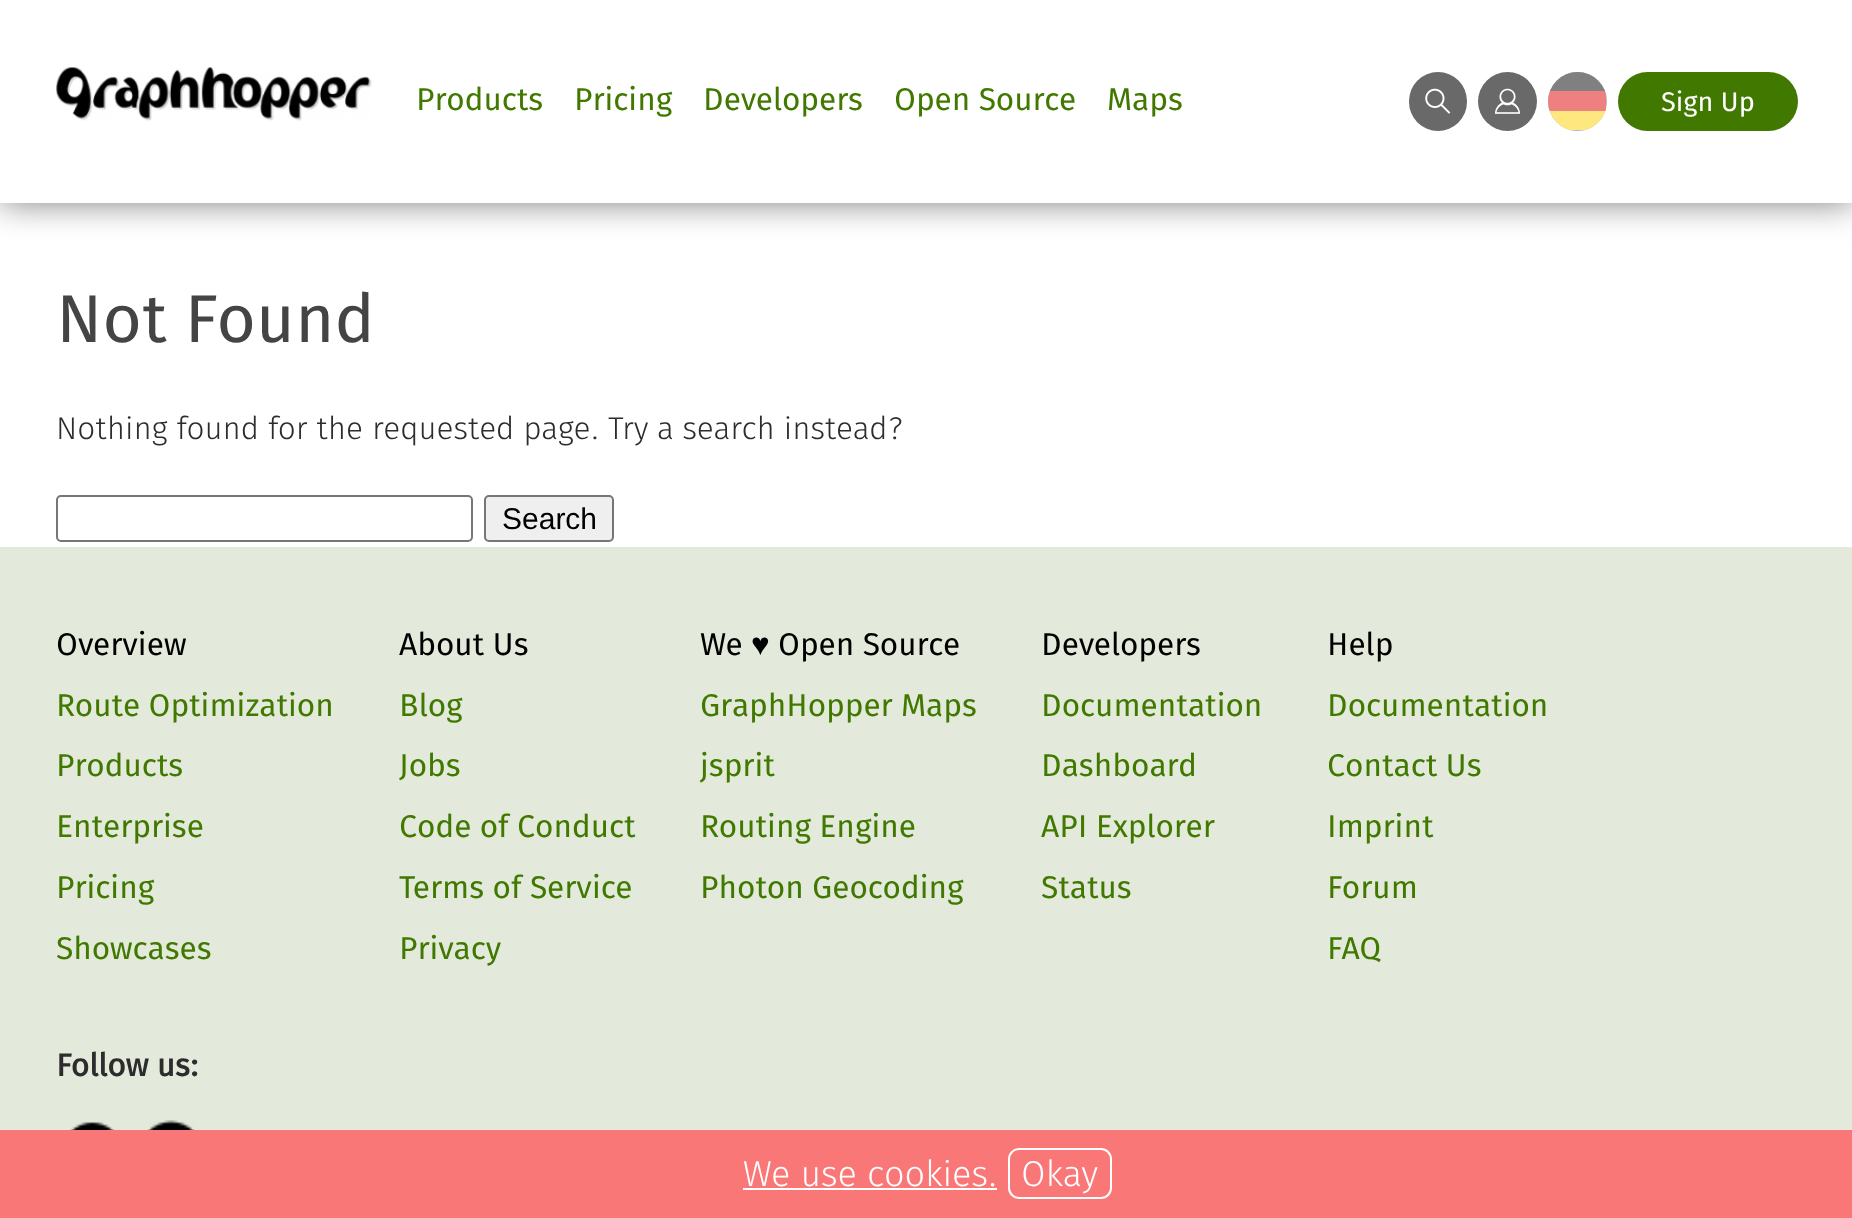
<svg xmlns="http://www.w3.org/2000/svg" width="1852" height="1218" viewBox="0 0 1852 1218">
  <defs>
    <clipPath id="clip1"><rect x="1548" y="72" width="59" height="59" rx="29.5"/></clipPath>
  </defs>
  <rect width="100%" height="100%" fill="rgb(255,255,255)"/>
  <rect x="0" y="0" width="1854" height="203" fill="rgba(0,0,0,0.5)" filter="blur(17px)"/>
  <rect x="0" y="0" width="1852" height="203" fill="rgb(255,255,255)"/>
  <image x="56" y="67" width="316" height="54" href="pic1.png"/>
  <g font-family="Fira Sans" font-size="31.5" fill="rgb(65,121,0)">
    <text x="416" y="110">Products</text>
    <text x="574" y="110">Pricing</text>
    <text x="703" y="110">Developers</text>
    <text x="894" y="110">Open Source</text>
    <text x="1107" y="110">Maps</text>
  </g>
  <rect x="1409" y="72" width="58" height="59" rx="29" fill="rgb(105,105,105)"/>
  <image x="1425" y="88" width="26" height="26" href="pic2.png"/>
  <circle cx="1507.5" cy="101.5" r="29.5" fill="rgb(105,105,105)"/>
  <image x="1495" y="88" width="25" height="26" href="pic3.png"/>
  <circle cx="1577.5" cy="101.5" r="29.5" fill="rgb(180,180,180)"/>
  <g clip-path="url(#clip1)">
    <rect x="1549" y="111" width="57" height="19" fill="rgb(255,231,128)"/>
    <rect x="1550" y="72" width="55" height="19" fill="rgb(128,128,128)"/>
    <rect x="1548" y="91" width="58" height="20" fill="rgb(238,128,128)"/>
  </g>
  <rect x="1618" y="72" width="180" height="59" rx="29.5" fill="rgb(65,121,0)"/>
  <text x="1661" y="111" font-family="Fira Sans" font-size="27" fill="rgb(255,255,255)">Sign Up</text>
  <text x="56" y="342" font-family="Fira Sans" font-size="67.5" fill="rgb(68,68,68)">Not Found</text>
  <text x="56" y="439" font-family="Fira Sans" font-size="31.5" font-weight="300" fill="rgb(44,44,44)">Nothing found for the requested page. Try a search instead?</text>
  <rect x="57" y="496" width="415" height="45" rx="4" fill="none" stroke="rgb(118,118,118)" stroke-width="2"/>
  <rect x="485" y="496" width="128" height="45" rx="4" fill="rgb(239,239,239)" stroke="rgb(118,118,118)" stroke-width="2"/>
  <text x="502" y="529" font-family="Liberation Sans" font-size="30" fill="rgb(0,0,0)">Search</text>
  <rect x="0" y="547" width="1852" height="583" fill="rgb(227,234,219)"/>
  <text x="56" y="655" font-family="Fira Sans" font-size="31.5" fill="rgb(0,0,0)">Overview</text>
  <g font-family="Fira Sans" font-size="31.5" fill="rgb(65,121,0)">
    <text>
      <tspan x="56" y="716">Route Optimization</tspan>
      <tspan x="56" y="776">Products</tspan>
      <tspan x="56" y="837">Enterprise</tspan>
      <tspan x="56" y="898">Pricing</tspan>
      <tspan x="56" y="959">Showcases</tspan>
    </text>
  </g>
  <text x="399" y="655" font-family="Fira Sans" font-size="31.5" fill="rgb(0,0,0)">About Us</text>
  <g font-family="Fira Sans" font-size="31.5" fill="rgb(65,121,0)">
    <text>
      <tspan x="399" y="716">Blog</tspan>
      <tspan x="399" y="776">Jobs</tspan>
      <tspan x="399" y="837">Code of Conduct</tspan>
      <tspan x="399" y="898">Terms of Service</tspan>
      <tspan x="399" y="959">Privacy</tspan>
    </text>
  </g>
  <text x="700" y="655" font-family="Fira Sans" font-size="31.5" fill="rgb(0,0,0)">We</text>
  <text x="751" y="655" font-family="Liberation Sans" font-size="31.5" fill="rgb(0,0,0)">♥</text>
  <text x="778" y="655" font-family="Fira Sans" font-size="31.5" fill="rgb(0,0,0)">Open Source</text>
  <g font-family="Fira Sans" font-size="31.5" fill="rgb(65,121,0)">
    <text>
      <tspan x="700" y="716">GraphHopper Maps</tspan>
      <tspan x="700" y="776">jsprit</tspan>
      <tspan x="700" y="837">Routing Engine</tspan>
      <tspan x="700" y="898">Photon Geocoding</tspan>
    </text>
  </g>
  <text x="1041" y="655" font-family="Fira Sans" font-size="31.5" fill="rgb(0,0,0)">Developers</text>
  <g font-family="Fira Sans" font-size="31.5" fill="rgb(65,121,0)">
    <text>
      <tspan x="1041" y="716">Documentation</tspan>
      <tspan x="1041" y="776">Dashboard</tspan>
      <tspan x="1041" y="837">API Explorer</tspan>
      <tspan x="1041" y="898">Status</tspan>
    </text>
  </g>
  <text x="1327" y="655" font-family="Fira Sans" font-size="31.5" fill="rgb(0,0,0)">Help</text>
  <g font-family="Fira Sans" font-size="31.5" fill="rgb(65,121,0)">
    <text>
      <tspan x="1327" y="716">Documentation</tspan>
      <tspan x="1327" y="776">Contact Us</tspan>
      <tspan x="1327" y="837">Imprint</tspan>
      <tspan x="1327" y="898">Forum</tspan>
      <tspan x="1327" y="959">FAQ</tspan>
    </text>
  </g>
  <text x="56" y="1076" font-family="Fira Sans" font-size="31.5" font-weight="bold" fill="rgb(44,44,44)">Follow us:</text>
  <image x="69" y="1122" width="46" height="8" href="pic4.png"/>
  <image x="147" y="1120" width="48" height="10" href="pic5.png"/>
  <rect x="0" y="1130" width="1852" height="88" fill="rgb(249,119,119)"/>
  <text x="743" y="1186" font-family="Fira Sans" font-size="36" font-weight="300" fill="rgb(255,255,255)">We use cookies.</text>
  <rect x="743" y="1188" width="254" height="2" fill="rgb(255,255,255)"/>
  <rect x="1009" y="1149" width="102" height="49" rx="10" fill="none" stroke="rgb(255,255,255)" stroke-width="2"/>
  <text x="1021" y="1186" font-family="Fira Sans" font-size="36" font-weight="300" fill="rgb(255,255,255)">Okay</text>
</svg>
